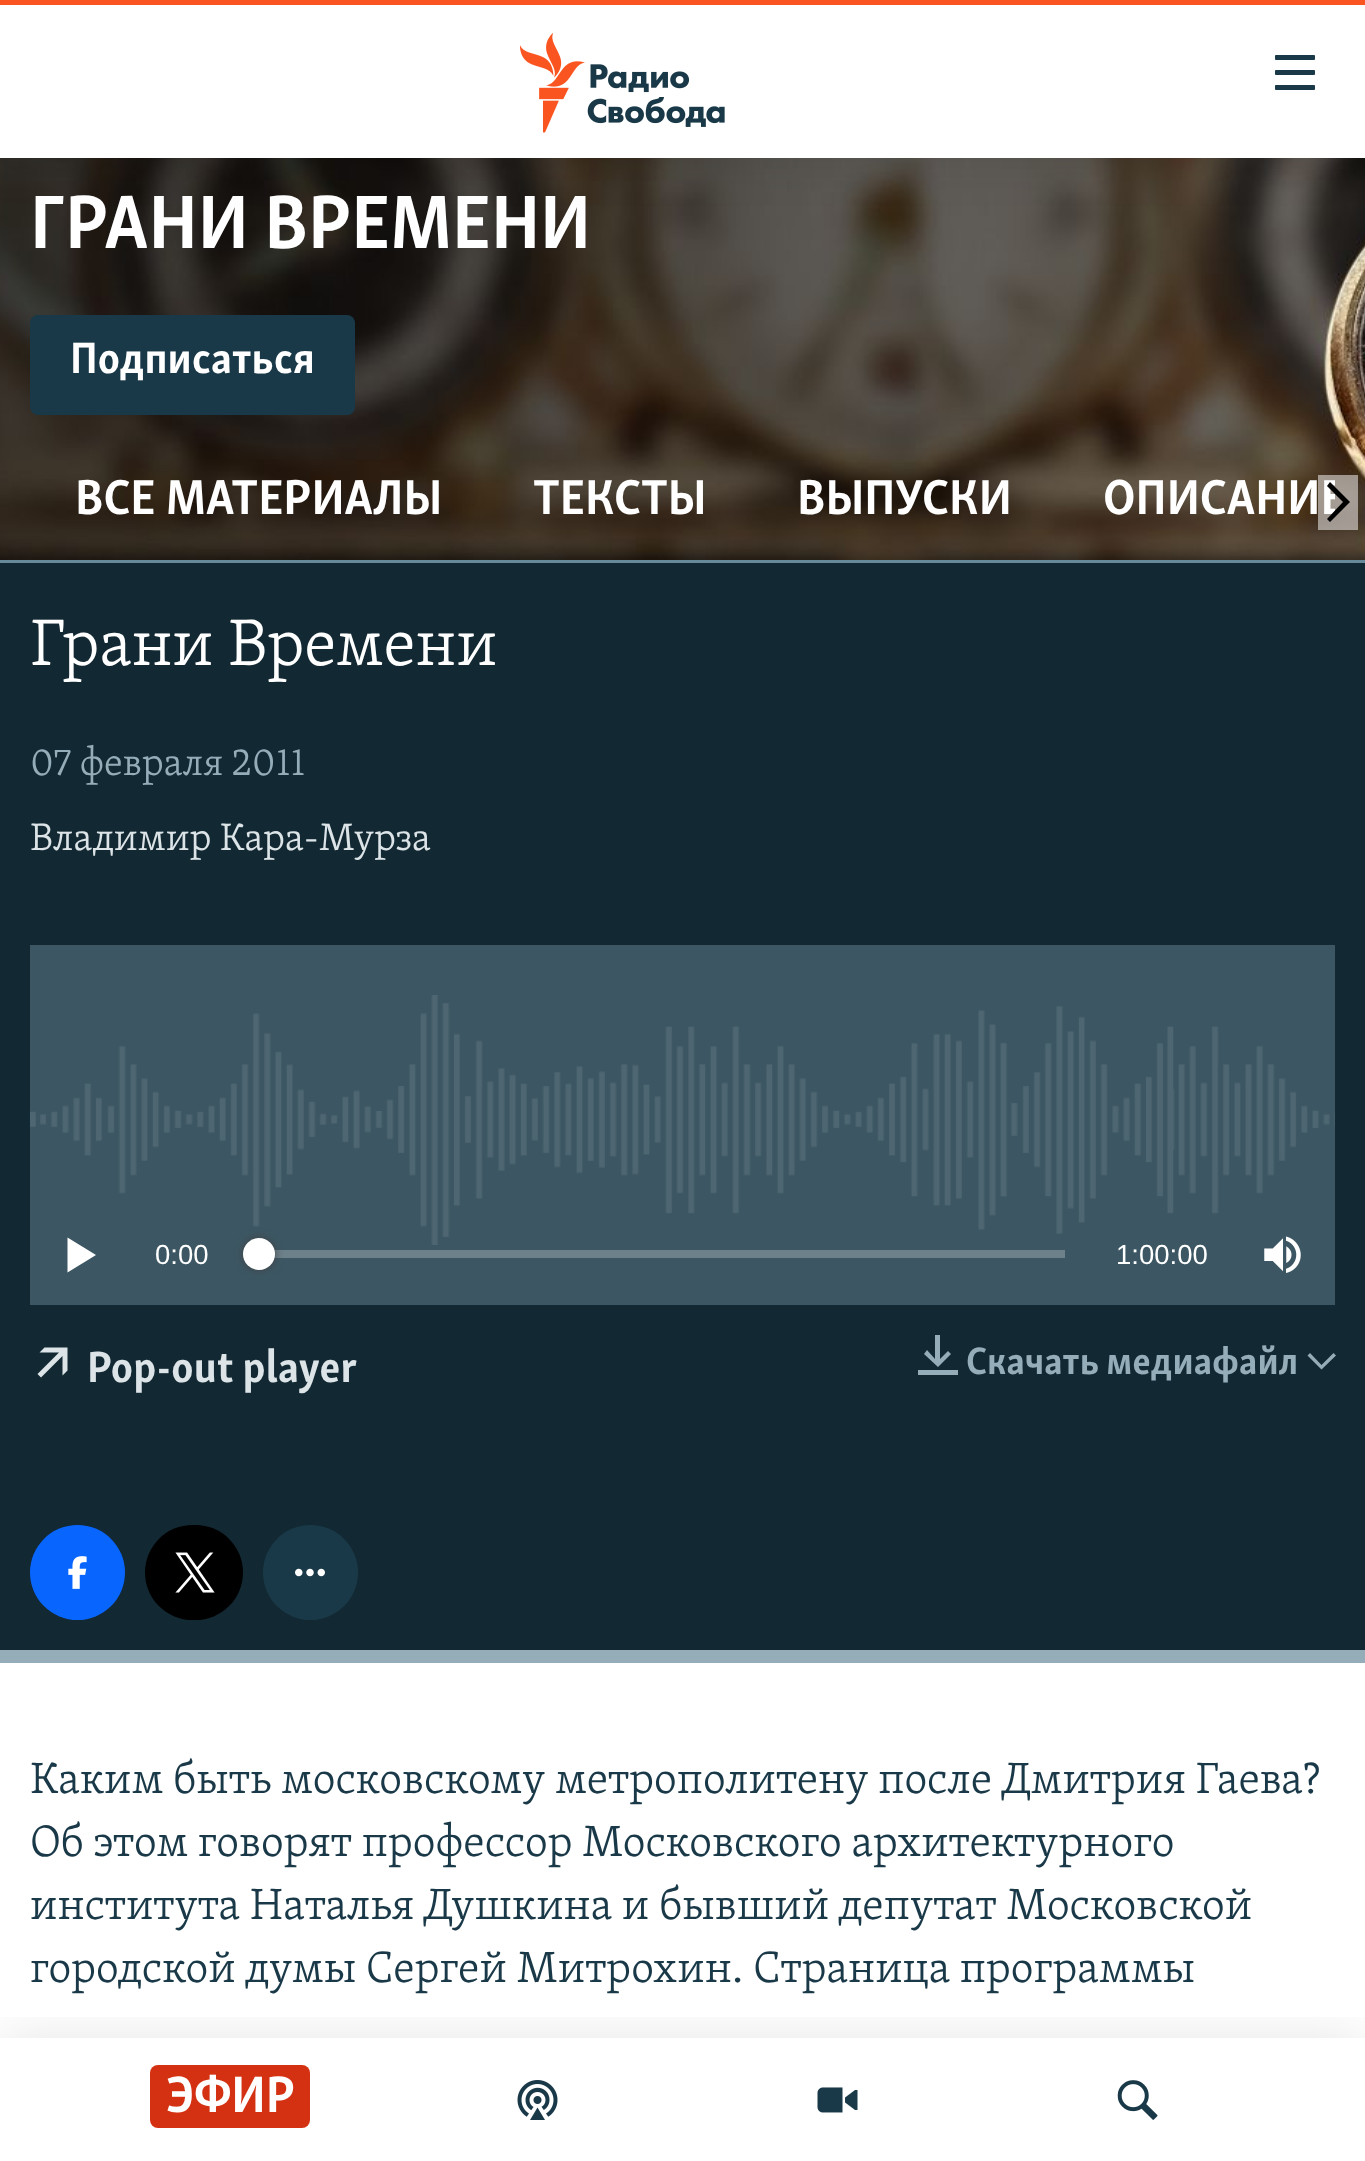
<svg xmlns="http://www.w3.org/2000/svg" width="1365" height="2161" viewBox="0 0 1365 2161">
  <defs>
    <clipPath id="clip1"><rect x="30" y="445" width="1305" height="115"/></clipPath>
    <clipPath id="clip2"><rect x="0" y="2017" width="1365" height="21"/></clipPath>
  </defs>
  <rect width="100%" height="100%" fill="rgb(255,255,255)"/>
  <image x="0" y="158" width="1365" height="402" href="pic1.png"/>
  <text x="30" y="248" font-family="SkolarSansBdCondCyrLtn" font-size="77.75" font-weight="bold" fill="rgb(255,255,255)">ГРАНИ ВРЕМЕНИ</text>
  <rect x="30" y="315" width="325" height="100" rx="8" fill="rgb(26,57,72)"/>
  <text x="70" y="373" font-family="SkolarSansBdCondCyrLtn" font-size="45" font-weight="bold" fill="rgb(255,255,255)">Подписаться</text>
  <g font-family="SkolarSansBdCondCyrLtn" font-size="50.5" font-weight="bold" fill="rgb(255,255,255)">
    <text x="75" y="514">ВСЕ МАТЕРИАЛЫ</text>
    <text x="533" y="514">ТЕКСТЫ</text>
    <text x="797" y="514">ВЫПУСКИ</text>
  </g>
  <g clip-path="url(#clip1)">
    <text x="1103" y="514" font-family="SkolarSansBdCondCyrLtn" font-size="50.5" font-weight="bold" fill="rgb(255,255,255)">ОПИСАНИЕ</text>
  </g>
  <rect x="1318" y="475" width="40" height="55" fill="rgba(255,255,255,0.5)"/>
  <path d="M1330 522L1350 502L1330 482L1327 486L1343 502L1327 519Z" fill="rgb(0,0,0)"/>
  <rect x="0" y="563" width="1365" height="1087" fill="rgb(18,40,50)"/>
  <rect x="0" y="560" width="1365" height="3" fill="rgb(103,138,155)"/>
  <rect x="0" y="1650" width="1365" height="13" fill="rgb(149,173,185)"/>
  <text x="30" y="665" font-family="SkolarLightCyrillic" font-size="67.5" font-weight="300" fill="rgb(255,255,255)">Грани Времени</text>
  <text x="30" y="775" font-family="SkolarLightCyrillic" font-size="39.4" font-weight="300" fill="rgb(149,173,185)">07 февраля 2011</text>
  <text x="30" y="850" font-family="SkolarLightCyrillic" font-size="39.4" font-weight="300" fill="rgb(220,228,232)">Владимир Кара-Мурза</text>
  <rect x="30" y="945" width="1305" height="360" fill="rgb(60,87,99)"/>
  <image x="30" y="995" width="1305" height="250" href="pic2.png"/>
  <path d="M67.5 1272.5L96 1255L67.5 1237.5Z" fill="rgb(255,255,255)"/>
  <text x="155" y="1264" font-family="Liberation Sans" font-size="27.5" fill="rgb(255,255,255)">0:00</text>
  <rect x="274" y="1250" width="791" height="8" fill="rgb(109,129,138)"/>
  <rect x="243" y="1238" width="32" height="32" rx="16" fill="rgb(65,65,68)" filter="blur(4px)"/>
  <circle cx="259" cy="1254" r="16" fill="rgb(255,255,255)"/>
  <text x="1116" y="1264" font-family="Liberation Sans" font-size="27.5" fill="rgb(255,255,255)">1:00:00</text>
  <image x="1264" y="1236" width="37" height="37" href="pic3.png"/>
  <path d="M67.5 1347.5H44.5L39.5 1352.5H59L37.5 1374L41 1377.5L62.5 1356V1375.5L67.5 1370.5Z" fill="rgb(220,228,232)"/>
  <text x="87" y="1382" font-family="SkolarSansBdCondCyrLtn" font-size="45" font-weight="bold" fill="rgb(220,228,232)">Pop-out player</text>
  <path d="M958 1370V1375H918V1370ZM951 1354L948 1351L940 1359V1335H935V1359L927 1350L924 1354L938 1367Z" fill="rgb(149,173,185)"/>
  <text x="966" y="1374" font-family="SkolarSansBdCondCyrLtn" font-size="39.4" font-weight="bold" fill="rgb(149,173,185)">Скачать медиафайл</text>
  <path d="M1307.5 1355.5L1321.5 1369.5L1336 1355.5L1333.5 1353L1321.5 1365L1310 1353Z" fill="rgb(149,173,185)"/>
  <circle cx="77.5" cy="1572.5" r="47.5" fill="rgb(8,102,255)"/>
  <image x="68" y="1556" width="19" height="33" href="pic4.png"/>
  <rect x="145" y="1525" width="98" height="95" rx="47.5" fill="rgb(0,0,0)"/>
  <image x="175" y="1552" width="40" height="41" href="pic5.png"/>
  <circle cx="310.5" cy="1572.5" r="47.5" fill="rgb(26,57,72)"/>
  <image x="295" y="1568" width="30" height="9" href="pic6.png"/>
  <g font-family="SkolarLightCyrillic" font-size="45" font-weight="300" fill="rgb(26,57,72)">
    <text>
      <tspan x="30" y="1793">Каким быть московскому метрополитену после Дмитрия Гаева?</tspan>
      <tspan x="30" y="1856">Об этом говорят профессор Московского архитектурного</tspan>
      <tspan x="30" y="1919">института Наталья Душкина и бывший депутат Московской</tspan>
      <tspan x="30" y="1982">городской думы Сергей Митрохин. Страница программы</tspan>
    </text>
  </g>
  <rect x="0" y="0" width="1365" height="158" fill="rgba(0,0,0,0.1)" filter="blur(25px)"/>
  <rect x="0" y="5" width="1365" height="153" fill="rgb(255,255,255)"/>
  <rect x="0" y="0" width="1365" height="5" fill="rgb(250,84,32)"/>
  <image x="520" y="33" width="205" height="100" href="pic7.png"/>
  <image x="1275" y="55" width="40" height="35" href="pic8.png"/>
  <g clip-path="url(#clip2)">
    <rect x="0" y="2038" width="1365" height="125" fill="rgba(0,0,0,0.1)" filter="blur(25px)"/>
  </g>
  <rect x="150" y="2065" width="160" height="63" rx="8" fill="rgb(211,49,17)"/>
  <text x="166" y="2112" font-family="SkolarSansBdCondCyrLtn" font-size="52.5" font-weight="bold" fill="rgb(255,255,255)">ЭФИР</text>
  <image x="517" y="2080" width="41" height="40" href="pic9.png"/>
  <image x="817" y="2087" width="41" height="26" href="pic10.png"/>
  <image x="1117" y="2080" width="41" height="40" href="pic11.png"/>
</svg>
